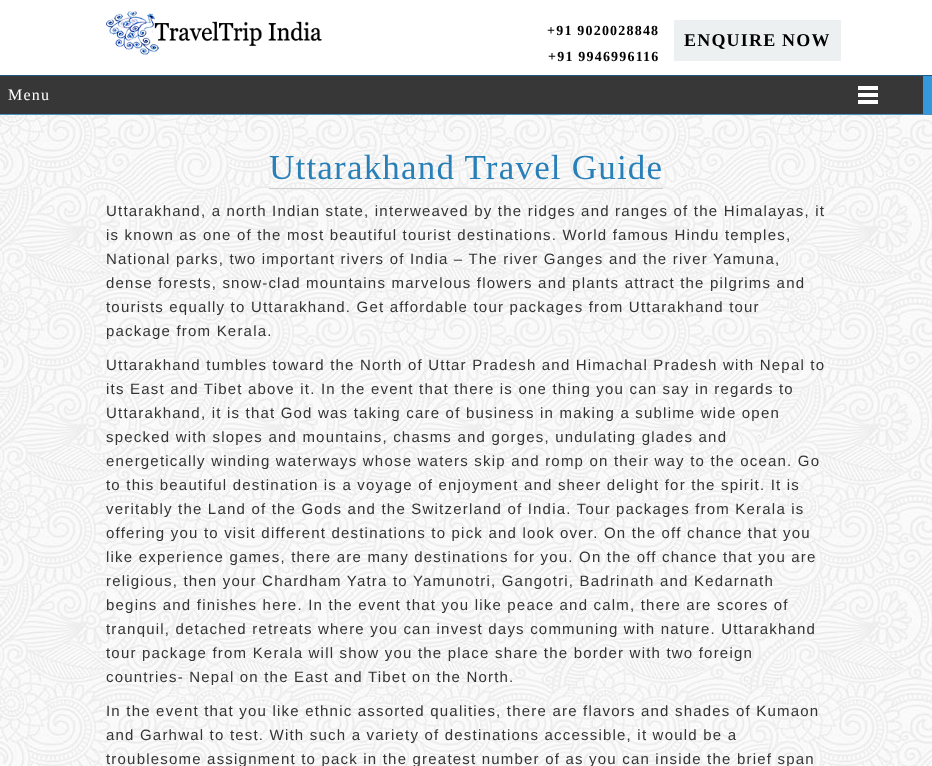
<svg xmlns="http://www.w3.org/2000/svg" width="932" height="766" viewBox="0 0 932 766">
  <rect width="100%" height="100%" fill="rgb(255,255,255)"/>
  <image x="0" y="115" width="932" height="651" href="pic1.png"/>
  <image x="106" y="11" width="216" height="44" href="pic2.png"/>
  <g font-family="Liberation Serif" font-size="14" font-weight="bold" letter-spacing="1.2" fill="rgb(0,0,0)">
    <text x="547" y="35">+91 9020028848</text>
    <text x="548" y="61">+91 9946996116</text>
  </g>
  <rect x="674" y="20" width="167" height="41" fill="rgb(236,240,241)"/>
  <text x="684" y="46" font-family="Liberation Serif" font-size="18" font-weight="bold" letter-spacing="1.2" fill="rgb(0,0,0)">ENQUIRE NOW</text>
  <rect x="923" y="76" width="9" height="38" fill="rgb(52,152,219)"/>
  <rect x="0" y="75" width="932" height="1" fill="rgb(32,89,128)"/>
  <rect x="0" y="114" width="932" height="1" fill="rgb(77,147,195)"/>
  <rect x="0" y="76" width="923" height="38" fill="rgb(55,55,55)"/>
  <image x="858" y="86" width="20" height="18" href="pic3.png"/>
  <text x="8" y="100" font-family="Liberation Serif" font-size="16" letter-spacing="1.2" fill="rgb(255,255,255)">Menu</text>
  <rect x="269" y="188" width="394" height="1" fill="rgb(204,204,204)"/>
  <text x="269" y="179" font-family="Liberation Serif" font-size="35" letter-spacing="1.2" fill="rgb(41,128,185)">Uttarakhand Travel Guide</text>
  <g font-family="Liberation Sans" font-size="15" letter-spacing="1.2" fill="rgb(51,51,51)">
    <text>
      <tspan x="106" y="216">Uttarakhand, a north Indian state, interweaved by the ridges and ranges of the Himalayas, it</tspan>
      <tspan x="106" y="240">is known as one of the most beautiful tourist destinations. World famous Hindu temples,</tspan>
      <tspan x="106" y="264">National parks, two important rivers of India – The river Ganges and the river Yamuna,</tspan>
      <tspan x="106" y="288">dense forests, snow-clad mountains marvelous flowers and plants attract the pilgrims and</tspan>
      <tspan x="106" y="312">tourists equally to Uttarakhand. Get affordable tour packages from Uttarakhand tour</tspan>
      <tspan x="106" y="336">package from Kerala.</tspan>
    </text>
    <text>
      <tspan x="106" y="370">Uttarakhand tumbles toward the North of Uttar Pradesh and Himachal Pradesh with Nepal to</tspan>
      <tspan x="106" y="394">its East and Tibet above it. In the event that there is one thing you can say in regards to</tspan>
      <tspan x="106" y="418">Uttarakhand, it is that God was taking care of business in making a sublime wide open</tspan>
      <tspan x="106" y="442">specked with slopes and mountains, chasms and gorges, undulating glades and</tspan>
      <tspan x="106" y="466">energetically winding waterways whose waters skip and romp on their way to the ocean. Go</tspan>
      <tspan x="106" y="490">to this beautiful destination is a voyage of enjoyment and sheer delight for the spirit. It is</tspan>
      <tspan x="106" y="514">veritably the Land of the Gods and the Switzerland of India. Tour packages from Kerala is</tspan>
      <tspan x="106" y="538">offering you to visit different destinations to pick and look over. On the off chance that you</tspan>
      <tspan x="106" y="562">like experience games, there are many destinations for you. On the off chance that you are</tspan>
      <tspan x="106" y="586">religious, then your Chardham Yatra to Yamunotri, Gangotri, Badrinath and Kedarnath</tspan>
      <tspan x="106" y="610">begins and finishes here. In the event that you like peace and calm, there are scores of</tspan>
      <tspan x="106" y="634">tranquil, detached retreats where you can invest days communing with nature. Uttarakhand</tspan>
      <tspan x="106" y="658">tour package from Kerala will show you the place share the border with two foreign</tspan>
      <tspan x="106" y="682">countries- Nepal on the East and Tibet on the North.</tspan>
    </text>
    <text>
      <tspan x="106" y="716">In the event that you like ethnic assorted qualities, there are flavors and shades of Kumaon</tspan>
      <tspan x="106" y="740">and Garhwal to test. With such a variety of destinations accessible, it would be a</tspan>
      <tspan x="106" y="764">troublesome assignment to pack in the greatest number of as you can inside the brief span</tspan>
    </text>
  </g>
</svg>
